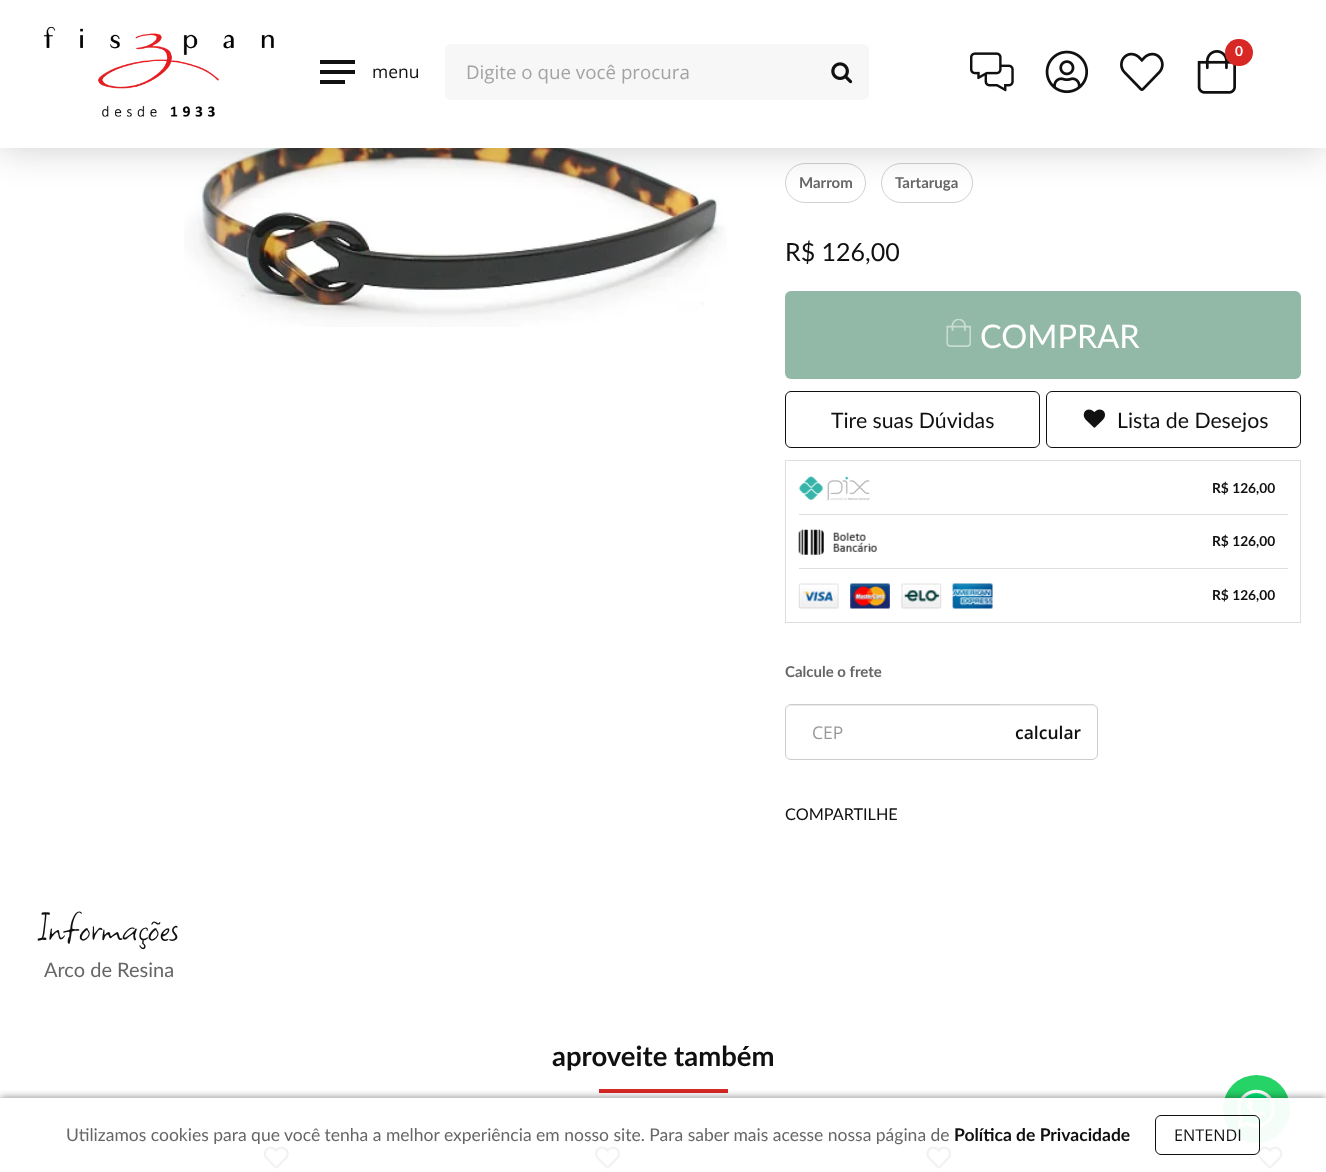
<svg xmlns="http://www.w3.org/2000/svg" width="1326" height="1172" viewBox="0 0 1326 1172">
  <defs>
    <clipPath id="clip1"><rect x="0" y="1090" width="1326" height="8"/></clipPath>
  </defs>
  <rect width="100%" height="100%" fill="rgb(255,255,255)"/>
  <image x="184" y="148" width="543" height="179" href="pic7.png"/>
  <rect x="785.5" y="163.5" width="80" height="39" rx="19.5" fill="none" stroke="rgb(209,209,209)"/>
  <rect x="881.5" y="163.5" width="91" height="39" rx="19.5" fill="none" stroke="rgb(209,209,209)"/>
  <rect x="0" y="0" width="1326" height="148" fill="rgba(0,0,0,0.2)" filter="blur(19px)"/>
  <rect x="0" y="0" width="1326" height="148" fill="rgb(255,255,255)"/>
  <image x="43" y="26" width="231" height="91" href="pic1.png"/>
  <image x="970" y="52" width="44" height="40" href="pic2.png"/>
  <image x="1045" y="50" width="44" height="44" href="pic3.png"/>
  <image x="1120" y="52" width="44" height="39" href="pic4.png"/>
  <image x="1197" y="50" width="39" height="44" href="pic5.png"/>
  <rect x="1225" y="39" width="28" height="27" rx="13.5" fill="rgb(215,40,37)"/>
  <text x="1235" y="56" font-family="Lato" font-size="13.75" font-weight="bold" fill="rgb(255,255,255)">0</text>
  <rect x="320" y="60" width="35" height="4" fill="rgb(16,16,16)"/>
  <rect x="320" y="70" width="35" height="4" fill="rgb(16,16,16)"/>
  <rect x="320" y="80" width="25" height="4" fill="rgb(16,16,16)"/>
  <text x="372" y="78" font-family="Open Sans" font-size="17.5" fill="rgb(16,16,16)">menu</text>
  <rect x="445" y="44" width="424" height="56" rx="6" fill="rgb(247,247,247)"/>
  <text x="466" y="79" font-family="Open Sans" font-size="18.75" fill="rgb(163,163,163)">Digite o que você procura</text>
  <image x="831" y="62" width="22" height="22" href="pic6.png"/>
  <g font-family="Lato" font-size="15" font-weight="bold" fill="rgb(102,102,102)">
    <text x="799" y="188">Marrom</text>
    <text x="895" y="188">Tartaruga</text>
  </g>
  <text x="785" y="261" font-family="Lato" font-size="25" fill="rgb(16,16,16)">R$ 126,00</text>
  <rect x="785" y="291" width="516" height="88" rx="6" fill="rgb(146,185,167)"/>
  <image x="946" y="319" width="25" height="28" href="pic8.png"/>
  <text x="980" y="348" font-family="Lato" font-size="32.5" fill="rgb(255,255,255)">COMPRAR</text>
  <rect x="785.5" y="391.5" width="254" height="56" rx="5.5" fill="none" stroke="rgb(16,16,16)"/>
  <text x="831" y="428" font-family="Lato" font-size="21.25" fill="rgb(16,16,16)">Tire suas Dúvidas</text>
  <rect x="1046.5" y="391.5" width="254" height="56" rx="5.5" fill="none" stroke="rgb(16,16,16)"/>
  <image x="1083" y="409" width="22" height="19" href="pic9.png"/>
  <text x="1117" y="428" font-family="Lato" font-size="21.25" fill="rgb(16,16,16)">Lista de Desejos</text>
  <rect x="785.5" y="460.5" width="515" height="162" fill="none" stroke="rgb(222,222,222)"/>
  <image x="798" y="476" width="72" height="25" href="pic10.png"/>
  <text x="1212" y="493" font-family="Lato" font-size="13.75" font-weight="bold" fill="rgb(16,16,16)">R$ 126,00</text>
  <rect x="799" y="514" width="489" height="1" fill="rgb(222,222,222)"/>
  <image x="798" y="529" width="79" height="26" href="pic11.png"/>
  <text x="1212" y="546" font-family="Lato" font-size="13.75" font-weight="bold" fill="rgb(16,16,16)">R$ 126,00</text>
  <rect x="799" y="568" width="489" height="1" fill="rgb(222,222,222)"/>
  <image x="798" y="583" width="195" height="26" href="pic12.png"/>
  <text x="1212" y="600" font-family="Lato" font-size="13.75" font-weight="bold" fill="rgb(16,16,16)">R$ 126,00</text>
  <text x="785" y="677" font-family="Lato" font-size="15" font-weight="bold" fill="rgb(102,102,102)">Calcule o frete</text>
  <path d="M791 706H1091C1094 706 1096 708 1096 711C1096 708 1094 705 1091 705H791C788 705 786 708 786 711C786 708 788 706 791 706Z" fill="rgb(236,236,236)"/>
  <rect x="785.5" y="704.5" width="312" height="55" rx="5.5" fill="none" stroke="rgb(204,204,204)"/>
  <text x="812" y="739" font-family="Open Sans" font-size="17.5" fill="rgb(153,153,153)">CEP</text>
  <path d="M1000 705H1091C1094 705 1096 707 1096 710V709C1096 706 1094 704 1091 704H1000Z" fill="rgba(255,255,255,0.2)"/>
  <text x="1015" y="739" font-family="Open Sans" font-size="17.5" font-weight="600" fill="rgb(16,16,16)">calcular</text>
  <text x="785" y="820" font-family="Lato" font-size="16.25" fill="rgb(16,16,16)">COMPARTILHE</text>
  <text x="38" y="940" font-family="Square Peg" font-size="45" fill="rgb(16,16,16)">Informações</text>
  <text x="44" y="977" font-family="Lato" font-size="20" fill="rgb(102,102,102)">Arco de Resina</text>
  <text x="552" y="1066" font-family="Lato" font-size="27.5" font-weight="bold" fill="rgb(16,16,16)">aproveite também</text>
  <rect x="599" y="1089" width="129" height="4" fill="rgb(215,40,37)"/>
  <image x="264" y="1146" width="25" height="23" href="pic13.png"/>
  <image x="595" y="1146" width="25" height="23" href="pic14.png"/>
  <image x="926" y="1146" width="25" height="23" href="pic15.png"/>
  <image x="1258" y="1146" width="25" height="23" href="pic16.png"/>
  <rect x="1223" y="1075" width="67" height="68" rx="33.5" fill="rgb(37,211,102)"/>
  <image x="1237" y="1089" width="38" height="39" href="pic17.png"/>
  <g clip-path="url(#clip1)">
    <rect x="0" y="1098" width="1326" height="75" fill="rgba(0,0,0,0.5)" filter="blur(4.5px)"/>
  </g>
  <rect x="264" y="1098" width="1026" height="71" fill="rgba(255,255,255,0.95)"/>
  <text x="66" y="1141" font-family="Lato" font-size="17.5" fill="rgb(102,102,102)">Utilizamos cookies para que você tenha a melhor experiência em nosso site. Para saber mais acesse nossa página de</text>
  <text x="954" y="1141" font-family="Lato" font-size="17.5" font-weight="bold" fill="rgb(16,16,16)">Política de Privacidade</text>
  <rect x="1155.5" y="1115.5" width="104" height="39" rx="5.5" fill="none" stroke="rgb(16,16,16)"/>
  <text x="1174" y="1141" font-family="Open Sans" font-size="16.25" fill="rgb(16,16,16)">ENTENDI</text>
</svg>
